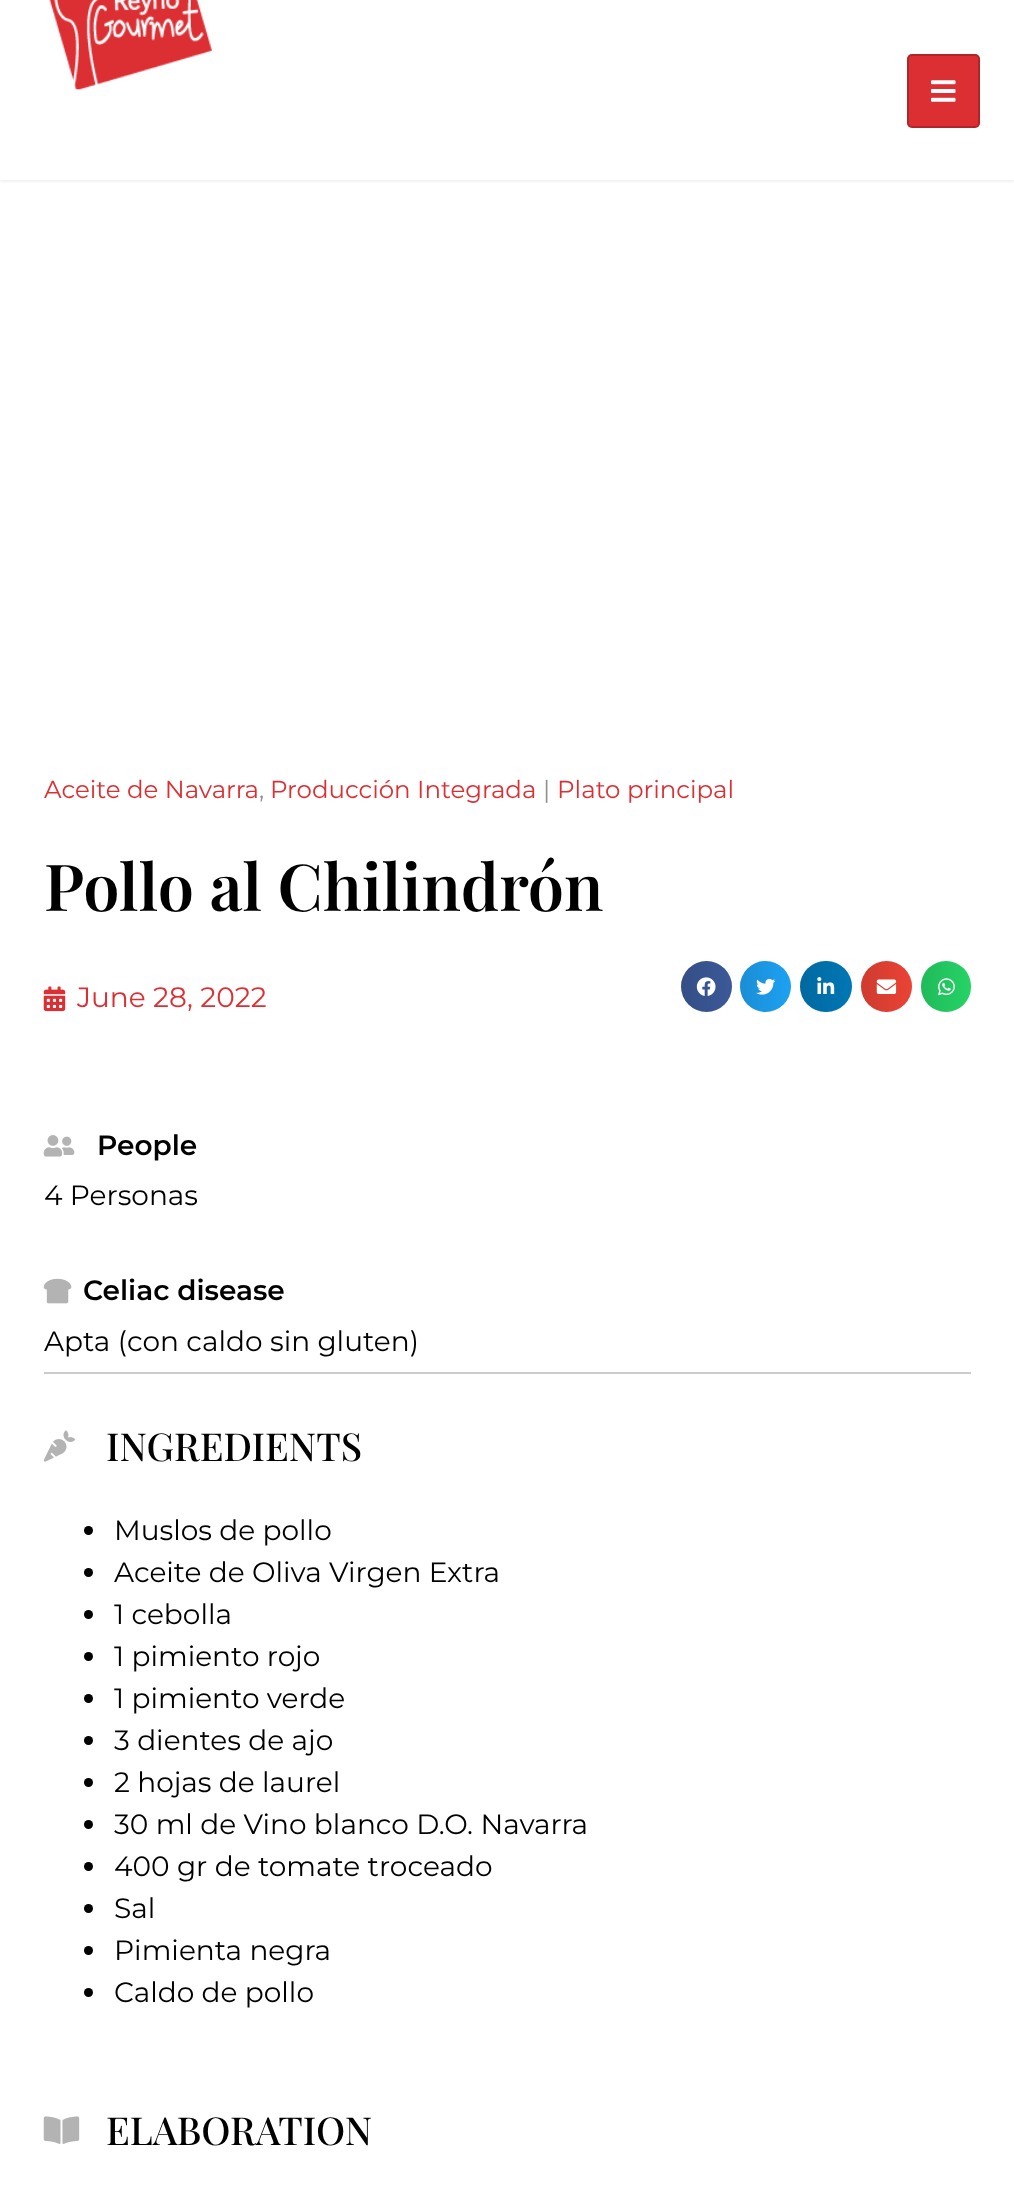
<svg xmlns="http://www.w3.org/2000/svg" width="1014" height="2205" viewBox="0 0 1014 2205">
  <defs>
    <clipPath id="clip1"><rect x="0" y="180" width="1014" height="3"/></clipPath>
    <linearGradient id="g1" gradientUnits="userSpaceOnUse" x1="681" y1="986" x2="732" y2="986"><stop offset="0" stop-color="rgb(0,0,0)" stop-opacity="0.12"/><stop offset="1" stop-color="rgb(0,0,0)" stop-opacity="0"/></linearGradient>
    <linearGradient id="g2" gradientUnits="userSpaceOnUse" x1="740" y1="986" x2="791" y2="986"><stop offset="0" stop-color="rgb(0,0,0)" stop-opacity="0.12"/><stop offset="1" stop-color="rgb(0,0,0)" stop-opacity="0"/></linearGradient>
    <linearGradient id="g3" gradientUnits="userSpaceOnUse" x1="800" y1="986" x2="852" y2="986"><stop offset="0" stop-color="rgb(0,0,0)" stop-opacity="0.12"/><stop offset="1" stop-color="rgb(0,0,0)" stop-opacity="0"/></linearGradient>
    <linearGradient id="g4" gradientUnits="userSpaceOnUse" x1="861" y1="986" x2="912" y2="986"><stop offset="0" stop-color="rgb(0,0,0)" stop-opacity="0.12"/><stop offset="1" stop-color="rgb(0,0,0)" stop-opacity="0"/></linearGradient>
    <linearGradient id="g5" gradientUnits="userSpaceOnUse" x1="921" y1="986" x2="971" y2="986"><stop offset="0" stop-color="rgb(0,0,0)" stop-opacity="0.12"/><stop offset="1" stop-color="rgb(0,0,0)" stop-opacity="0"/></linearGradient>
  </defs>
  <rect width="100%" height="100%" fill="rgb(255,255,255)"/>
  <g clip-path="url(#clip1)">
    <rect x="0" y="0" width="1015" height="180" fill="rgba(0,0,0,0.13)" filter="blur(2.5px)"/>
  </g>
  <image x="49" y="0" width="163" height="90" href="pic1.png"/>
  <rect x="907" y="54" width="73" height="74" rx="5" fill="rgb(220,47,52)"/>
  <rect x="908" y="55" width="71" height="72" rx="4" fill="none" stroke="rgba(0,0,0,0.2)" stroke-width="2"/>
  <image x="931" y="80" width="25" height="22" href="pic2.png"/>
  <text x="44" y="798" font-family="Montserrat" font-size="24.5" fill="rgb(220,47,52)">Aceite de Navarra</text>
  <text x="259" y="798" font-family="Montserrat" font-size="24.5" fill="rgb(143,143,143)">,</text>
  <text x="270" y="798" font-family="Montserrat" font-size="24.5" fill="rgb(220,47,52)">Producción Integrada</text>
  <text x="543" y="798" font-family="Montserrat" font-size="24.5" fill="rgb(143,143,143)">|</text>
  <text x="557" y="798" font-family="Montserrat" font-size="24.5" fill="rgb(220,47,52)">Plato principal</text>
  <text x="44" y="911" font-family="Playfair Display" font-size="64.75" font-weight="600" fill="rgb(0,0,0)">Pollo al Chilindrón</text>
  <image x="43" y="986" width="23" height="26" href="pic3.png"/>
  <text x="77" y="1007" font-family="Montserrat" font-size="28" fill="rgb(220,47,52)">June 28, 2022</text>
  <circle cx="706.5" cy="986.5" r="25.5" fill="rgb(59,89,152)"/>
  <circle cx="706.5" cy="986.5" r="25.5" fill="url(#g1)"/>
  <image x="696" y="977" width="20" height="19" href="pic4.png"/>
  <circle cx="765.5" cy="986.5" r="25.5" fill="rgb(29,161,242)"/>
  <circle cx="765.5" cy="986.5" r="25.5" fill="url(#g2)"/>
  <image x="756" y="978" width="20" height="17" href="pic5.png"/>
  <rect x="800" y="961" width="52" height="51" rx="25.5" fill="rgb(0,119,181)"/>
  <rect x="800" y="961" width="52" height="51" rx="25.5" fill="url(#g3)"/>
  <image x="817" y="977" width="18" height="17" href="pic6.png"/>
  <circle cx="886.5" cy="986.5" r="25.5" fill="rgb(234,67,53)"/>
  <circle cx="886.5" cy="986.5" r="25.5" fill="url(#g4)"/>
  <image x="876" y="979" width="21" height="15" href="pic7.png"/>
  <rect x="921" y="961" width="50" height="51" rx="25" fill="rgb(37,211,102)"/>
  <rect x="921" y="961" width="50" height="51" rx="25" fill="url(#g5)"/>
  <image x="938" y="978" width="17" height="18" href="pic8.png"/>
  <image x="43" y="1135" width="32" height="22" href="pic9.png"/>
  <text x="97" y="1155" font-family="Montserrat" font-size="28" font-weight="600" fill="rgb(0,0,0)">People</text>
  <text x="44" y="1205" font-family="Montserrat" font-size="28" fill="rgb(0,0,0)">4 Personas</text>
  <image x="43" y="1278" width="29" height="26" href="pic10.png"/>
  <text x="83" y="1300" font-family="Montserrat" font-size="28" font-weight="600" fill="rgb(0,0,0)">Celiac disease</text>
  <text x="44" y="1351" font-family="Montserrat" font-size="28" fill="rgb(0,0,0)">Apta (con caldo sin gluten)</text>
  <rect x="44" y="1372" width="927" height="2" fill="rgb(204,204,204)"/>
  <image x="43" y="1430" width="33" height="32" href="pic11.png"/>
  <text x="106" y="1461" font-family="Playfair Display" font-size="38.5" font-weight="500" fill="rgb(0,0,0)">INGREDIENTS</text>
  <circle cx="88.5" cy="1530.5" r="4.5" fill="rgb(0,0,0)"/>
  <text x="114" y="1540" font-family="Montserrat" font-size="28" fill="rgb(0,0,0)">Muslos de pollo</text>
  <circle cx="88.5" cy="1572.5" r="4.5" fill="rgb(0,0,0)"/>
  <text x="114" y="1582" font-family="Montserrat" font-size="28" fill="rgb(0,0,0)">Aceite de Oliva Virgen Extra</text>
  <circle cx="88.5" cy="1614.5" r="4.5" fill="rgb(0,0,0)"/>
  <text x="114" y="1624" font-family="Montserrat" font-size="28" fill="rgb(0,0,0)">1 cebolla</text>
  <circle cx="88.5" cy="1656.5" r="4.5" fill="rgb(0,0,0)"/>
  <text x="114" y="1666" font-family="Montserrat" font-size="28" fill="rgb(0,0,0)">1 pimiento rojo</text>
  <circle cx="88.5" cy="1698.5" r="4.5" fill="rgb(0,0,0)"/>
  <text x="114" y="1708" font-family="Montserrat" font-size="28" fill="rgb(0,0,0)">1 pimiento verde</text>
  <circle cx="88.5" cy="1740.5" r="4.5" fill="rgb(0,0,0)"/>
  <text x="114" y="1750" font-family="Montserrat" font-size="28" fill="rgb(0,0,0)">3 dientes de ajo</text>
  <circle cx="88.5" cy="1782.5" r="4.5" fill="rgb(0,0,0)"/>
  <text x="114" y="1792" font-family="Montserrat" font-size="28" fill="rgb(0,0,0)">2 hojas de laurel</text>
  <circle cx="88.5" cy="1824.5" r="4.5" fill="rgb(0,0,0)"/>
  <text x="114" y="1834" font-family="Montserrat" font-size="28" fill="rgb(0,0,0)">30 ml de Vino blanco D.O. Navarra</text>
  <circle cx="88.5" cy="1866.5" r="4.5" fill="rgb(0,0,0)"/>
  <text x="114" y="1876" font-family="Montserrat" font-size="28" fill="rgb(0,0,0)">400 gr de tomate troceado</text>
  <circle cx="88.5" cy="1908.5" r="4.5" fill="rgb(0,0,0)"/>
  <text x="114" y="1918" font-family="Montserrat" font-size="28" fill="rgb(0,0,0)">Sal</text>
  <circle cx="88.5" cy="1950.5" r="4.5" fill="rgb(0,0,0)"/>
  <text x="114" y="1960" font-family="Montserrat" font-size="28" fill="rgb(0,0,0)">Pimienta negra</text>
  <circle cx="88.5" cy="1992.5" r="4.5" fill="rgb(0,0,0)"/>
  <text x="114" y="2002" font-family="Montserrat" font-size="28" fill="rgb(0,0,0)">Caldo de pollo</text>
  <image x="43" y="2116" width="37" height="28" href="pic12.png"/>
  <text x="106" y="2145" font-family="Playfair Display" font-size="38.5" font-weight="500" fill="rgb(0,0,0)">ELABORATION</text>
</svg>
